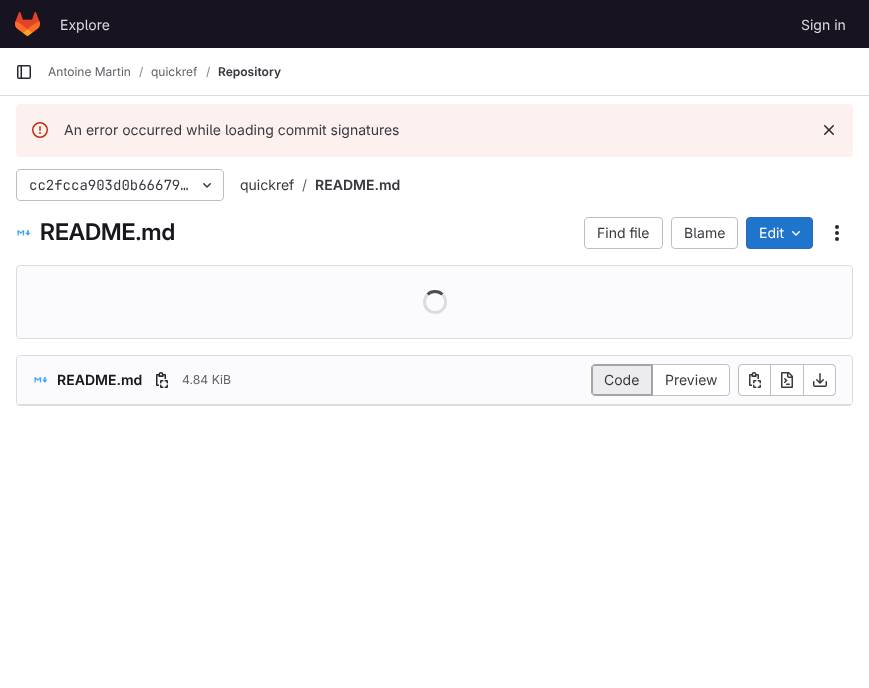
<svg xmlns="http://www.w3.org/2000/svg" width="869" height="688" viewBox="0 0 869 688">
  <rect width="100%" height="100%" fill="rgb(255,255,255)"/>
  <rect x="0" y="0" width="869" height="48" fill="rgb(23,19,33)"/>
  <image x="15" y="12" width="25" height="24" href="pic1.png"/>
  <g font-family="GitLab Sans" font-size="14" fill="rgb(220,220,222)">
    <text x="60" y="30">Explore</text>
    <text x="801" y="30">Sign in</text>
  </g>
  <rect x="0" y="95" width="869" height="1" fill="rgb(220,220,222)"/>
  <image x="17" y="65" width="14" height="14" href="pic2.png"/>
  <text x="48" y="76" font-family="GitLab Sans" font-size="12" fill="rgb(98,97,104)">Antoine Martin</text>
  <text x="139" y="76" font-family="GitLab Sans" font-size="12" fill="rgb(137,136,141)">/</text>
  <text x="151" y="76" font-family="GitLab Sans" font-size="12" fill="rgb(98,97,104)">quickref</text>
  <text x="206" y="76" font-family="GitLab Sans" font-size="12" fill="rgb(137,136,141)">/</text>
  <text x="218" y="76" font-family="GitLab Sans" font-size="12" font-weight="600" fill="rgb(58,56,63)">Repository</text>
  <rect x="16" y="104" width="837" height="53" rx="4" fill="rgb(252,241,239)"/>
  <image x="32" y="122" width="16" height="16" href="pic3.png"/>
  <text x="64" y="135" font-family="GitLab Sans" font-size="14" fill="rgb(58,56,63)">An error occurred while loading commit signatures</text>
  <image x="824" y="125" width="10" height="10" href="pic4.png"/>
  <rect x="16.5" y="169.5" width="207" height="31" rx="3.5" fill="none" stroke="rgb(191,191,195)"/>
  <text x="29" y="190" font-family="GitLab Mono" font-size="14" fill="rgb(58,56,63)">cc2fcca903d0b66679…</text>
  <image x="203" y="183" width="8" height="5" href="pic5.png"/>
  <text x="240" y="190" font-family="GitLab Sans" font-size="14" fill="rgb(58,56,63)">quickref</text>
  <text x="302" y="190" font-family="GitLab Sans" font-size="14" fill="rgb(98,97,104)">/</text>
  <text x="315" y="190" font-family="GitLab Sans" font-size="14" font-weight="600" fill="rgb(58,56,63)">README.md</text>
  <image x="17" y="230" width="14" height="6" href="pic6.png"/>
  <text x="40" y="240" font-family="'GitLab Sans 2'" font-size="23" font-weight="600" fill="rgb(24,23,29)">README.md</text>
  <rect x="584.5" y="217.5" width="78" height="31" rx="3.5" fill="none" stroke="rgb(191,191,195)"/>
  <text x="597" y="238" font-family="GitLab Sans" font-size="14" fill="rgb(58,56,63)">Find file</text>
  <rect x="671.5" y="217.5" width="66" height="31" rx="3.5" fill="none" stroke="rgb(191,191,195)"/>
  <text x="684" y="238" font-family="GitLab Sans" font-size="14" fill="rgb(58,56,63)">Blame</text>
  <rect x="746.5" y="217.5" width="66" height="31" rx="3.5" fill="rgb(31,117,203)" stroke="rgb(47,104,180)"/>
  <text x="759" y="238" font-family="GitLab Sans" font-size="14" fill="rgb(255,255,255)">Edit</text>
  <image x="792" y="231" width="8" height="5" href="pic7.png"/>
  <image x="835" y="225" width="4" height="16" href="pic8.png"/>
  <rect x="16.5" y="265.5" width="836" height="73" rx="3.5" fill="rgb(251,250,253)" stroke="rgb(220,220,222)"/>
  <path d="M427.5 294.5C431.5 290.5 438.5 290.5 442.5 294.5" fill="none" stroke="rgb(76,75,81)" stroke-width="3"/>
  <path d="M442.5 294.5C445 297 446 300.5 445.5 304C443 316.5 424.5 314.5 424.5 302C424.5 299 425.5 296.5 427.5 294.5" fill="none" stroke="rgb(220,220,222)" stroke-width="3"/>
  <rect x="16.5" y="355.5" width="836" height="50" rx="3.5" fill="none" stroke="rgb(220,220,222)"/>
  <path d="M20 356H849C850.5 356 852 357.5 852 359V405H17V359C17 357.5 18.5 356 20 356Z" fill="rgb(251,250,253)"/>
  <rect x="17" y="404" width="835" height="1" fill="rgb(220,220,222)"/>
  <image x="34" y="377" width="14" height="6" href="pic9.png"/>
  <text x="57" y="385" font-family="GitLab Sans" font-size="14" font-weight="600" fill="rgb(24,23,29)">README.md</text>
  <image x="156" y="372" width="12" height="16" href="pic10.png"/>
  <text x="182" y="384" font-family="GitLab Sans" font-size="12.25" fill="rgb(98,97,104)">4.84 KiB</text>
  <path d="M595 365.5H651.5V394.5H595C593.5 394.5 592.5 393.5 592.5 392V368C592.5 366.5 593.5 365.5 595 365.5Z" fill="rgb(236,236,239)" stroke="rgb(164,163,168)"/>
  <path d="M595 364H652V396H595C593 396 591 394 591 392V368C591 366 593 364 595 364ZM595 365H652V395H595C593 395 592 394 592 392V368C592 366 593 365 595 365Z" fill="rgb(164,163,168)" fill-rule="evenodd"/>
  <text x="604" y="385" font-family="GitLab Sans" font-size="14" fill="rgb(58,56,63)">Code</text>
  <path d="M653 365H726C727.5 365 729 366.5 729 368V392C729 393.5 727.5 395 726 395H653Z" fill="rgb(255,255,255)"/>
  <path d="M653 364H726C728 364 730 366 730 368V392C730 394 728 396 726 396H653ZM653 365H726C728 365 729 366 729 368V392C729 394 728 395 726 395H653Z" fill="rgb(191,191,195)" fill-rule="evenodd"/>
  <rect x="652" y="364" width="1" height="32" fill="rgb(164,163,168)"/>
  <text x="665" y="385" font-family="GitLab Sans" font-size="14" fill="rgb(58,56,63)">Preview</text>
  <path d="M742 365H770V395H742C740.5 395 739 393.5 739 392V368C739 366.5 740.5 365 742 365Z" fill="rgb(255,255,255)"/>
  <path d="M742 364H770V396H742C740 396 738 394 738 392V368C738 366 740 364 742 364ZM742 365H770V395H742C740.5 395 739 393.5 739 392V368C739 366.5 740.5 365 742 365Z" fill="rgb(191,191,195)" fill-rule="evenodd"/>
  <image x="749" y="372" width="12" height="16" href="pic11.png"/>
  <rect x="771" y="365" width="32" height="30" fill="rgb(255,255,255)"/>
  <rect x="771" y="364" width="32" height="1" fill="rgb(191,191,195)"/>
  <rect x="771" y="395" width="32" height="1" fill="rgb(191,191,195)"/>
  <rect x="770" y="364" width="1" height="32" fill="rgb(191,191,195)"/>
  <image x="781" y="372" width="12" height="16" href="pic12.png"/>
  <path d="M804 365H832C833.5 365 835 366.5 835 368V392C835 393.5 833.5 395 832 395H804Z" fill="rgb(255,255,255)"/>
  <path d="M804 364H832C834 364 836 366 836 368V392C836 394 834 396 832 396H804ZM804 365H832C833.5 365 835 366.5 835 368V392C835 393.5 833.5 395 832 395H804Z" fill="rgb(191,191,195)" fill-rule="evenodd"/>
  <rect x="803" y="364" width="1" height="32" fill="rgb(191,191,195)"/>
  <image x="813" y="373" width="14" height="14" href="pic13.png"/>
</svg>
